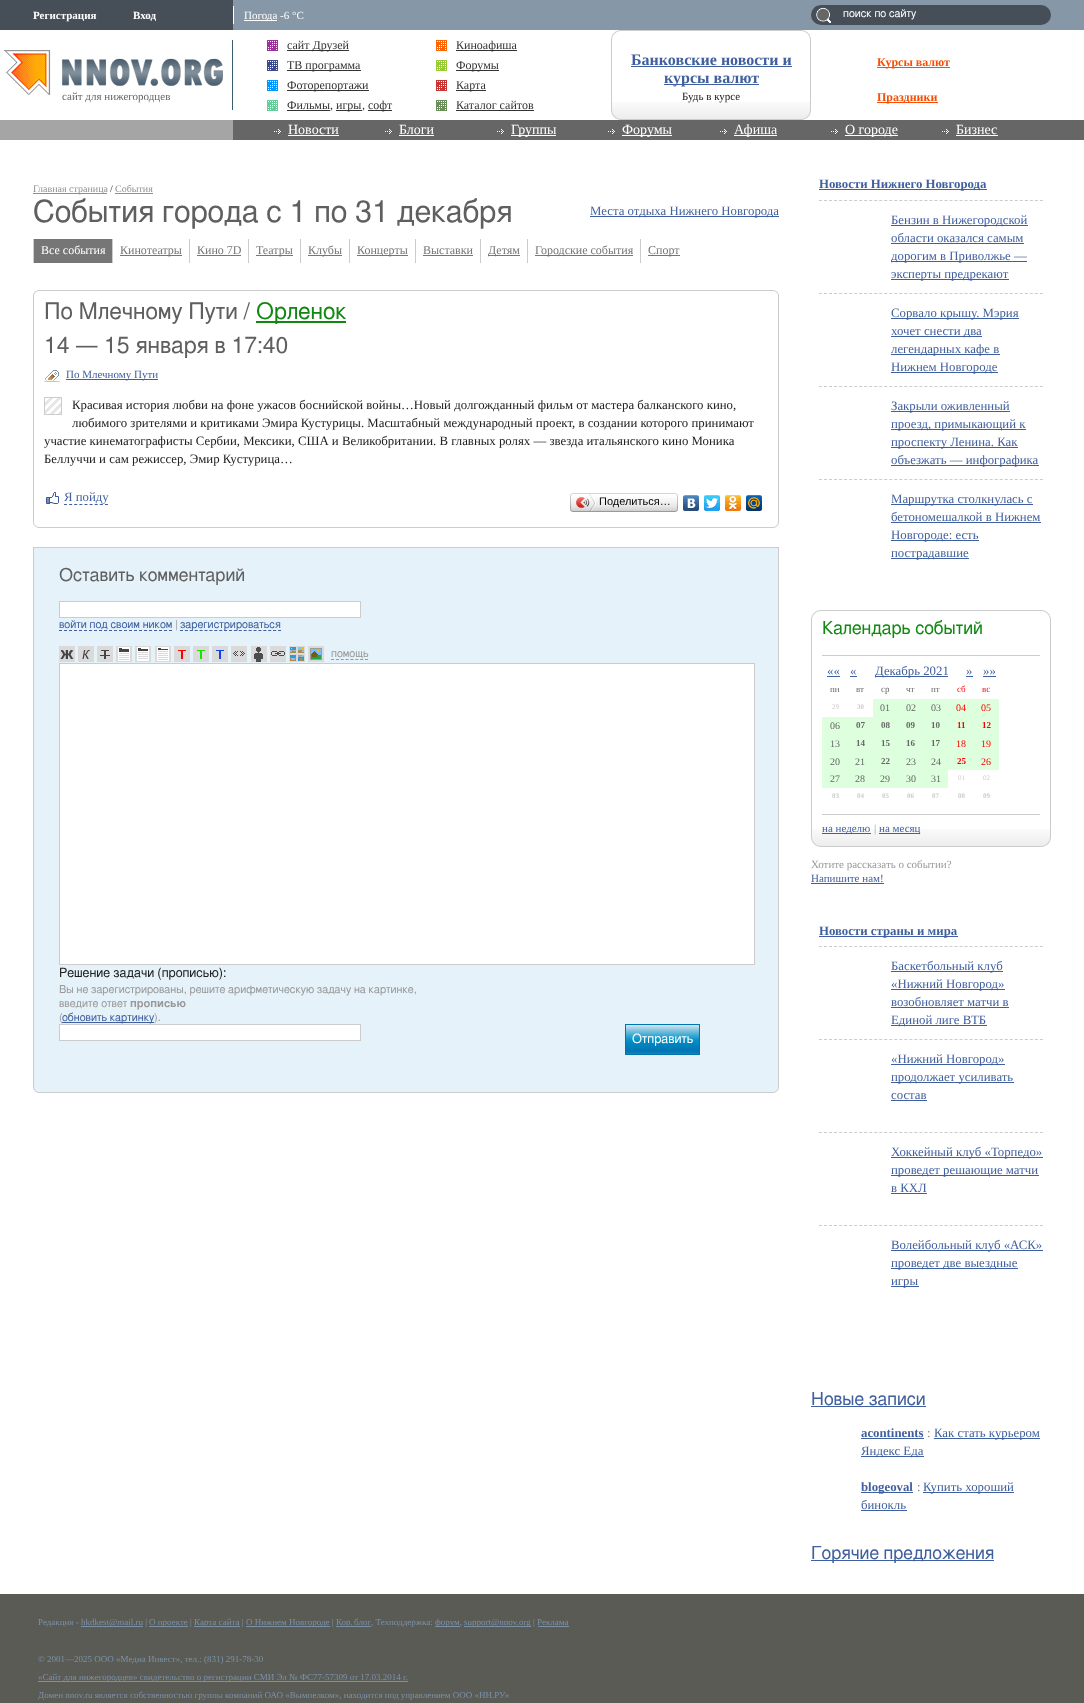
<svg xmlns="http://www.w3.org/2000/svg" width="1084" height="1703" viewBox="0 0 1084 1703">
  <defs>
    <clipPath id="clip1"><rect x="44" y="301" width="724" height="168"/></clipPath>
  </defs>
  <rect width="100%" height="100%" fill="rgb(255,255,255)"/>
  <rect x="233" y="0" width="851" height="30" fill="rgb(134,151,168)"/>
  <rect x="0" y="0" width="233" height="30" fill="rgb(70,78,87)"/>
  <g font-family="Liberation Serif" font-size="11" font-weight="bold" fill="rgb(255,255,255)">
    <text x="33" y="19">Регистрация</text>
    <text x="133" y="19">Вход</text>
  </g>
  <rect x="233" y="6" width="1" height="18" fill="rgb(255,255,255)"/>
  <rect x="244" y="20" width="33" height="1" fill="rgb(255,255,255)"/>
  <text x="244" y="19" font-family="Liberation Serif" font-size="11" fill="rgb(255,255,255)">Погода -6 °C</text>
  <rect x="811" y="5" width="240" height="20" rx="10" fill="rgb(70,78,87)"/>
  <image x="816" y="7" width="15" height="16" href="pic1.png"/>
  <text x="843" y="17" font-family="FreeSans" font-size="11" fill="rgb(255,255,255)">поиск по сайту</text>
  <image x="4" y="50" width="219" height="45" href="pic2.png"/>
  <rect x="232" y="40" width="1" height="70" fill="rgb(61,94,111)"/>
  <text x="62" y="100" font-family="Liberation Serif" font-size="11" fill="rgb(102,102,102)">сайт для нижегородцев</text>
  <rect x="267" y="40" width="11" height="11" fill="rgb(153,51,153)"/>
  <image x="268" y="41" width="9" height="9" href="pic3.png"/>
  <rect x="287" y="50" width="62" height="1" fill="rgb(51,51,51)"/>
  <text x="287" y="49" font-family="Liberation Serif" font-size="12" fill="rgb(51,51,51)">сайт Друзей</text>
  <rect x="436" y="40" width="11" height="11" fill="rgb(255,102,0)"/>
  <image x="437" y="41" width="9" height="9" href="pic4.png"/>
  <rect x="456" y="50" width="61" height="1" fill="rgb(51,51,51)"/>
  <text x="456" y="49" font-family="Liberation Serif" font-size="12" fill="rgb(51,51,51)">Киноафиша</text>
  <rect x="267" y="60" width="11" height="11" fill="rgb(59,75,140)"/>
  <image x="268" y="61" width="9" height="9" href="pic5.png"/>
  <rect x="287" y="70" width="74" height="1" fill="rgb(51,51,51)"/>
  <text x="287" y="69" font-family="Liberation Serif" font-size="12" fill="rgb(51,51,51)">ТВ программа</text>
  <rect x="436" y="60" width="11" height="11" fill="rgb(153,204,51)"/>
  <image x="437" y="61" width="9" height="9" href="pic6.png"/>
  <rect x="456" y="70" width="43" height="1" fill="rgb(51,51,51)"/>
  <text x="456" y="69" font-family="Liberation Serif" font-size="12" fill="rgb(51,51,51)">Форумы</text>
  <rect x="267" y="80" width="11" height="11" fill="rgb(0,153,255)"/>
  <image x="268" y="81" width="9" height="9" href="pic7.png"/>
  <rect x="287" y="90" width="82" height="1" fill="rgb(51,51,51)"/>
  <text x="287" y="89" font-family="Liberation Serif" font-size="12" fill="rgb(51,51,51)">Фоторепортажи</text>
  <rect x="436" y="80" width="11" height="11" fill="rgb(204,51,51)"/>
  <image x="437" y="81" width="9" height="9" href="pic8.png"/>
  <rect x="456" y="90" width="30" height="1" fill="rgb(51,51,51)"/>
  <text x="456" y="89" font-family="Liberation Serif" font-size="12" fill="rgb(51,51,51)">Карта</text>
  <rect x="267" y="100" width="11" height="11" fill="rgb(102,204,153)"/>
  <image x="268" y="101" width="9" height="9" href="pic9.png"/>
  <text x="287" y="109" font-family="Liberation Serif" font-size="12" fill="rgb(51,51,51)">Фильмы</text>
  <rect x="287" y="110" width="43" height="1" fill="rgb(51,51,51)"/>
  <text x="330" y="109" font-family="Liberation Serif" font-size="12" fill="rgb(51,51,51)">,</text>
  <rect x="336" y="110" width="26" height="1" fill="rgb(51,51,51)"/>
  <g font-family="Liberation Serif" font-size="12" fill="rgb(51,51,51)">
    <text x="336" y="109">игры</text>
    <text x="362" y="109">,</text>
  </g>
  <rect x="368" y="110" width="24" height="1" fill="rgb(51,51,51)"/>
  <text x="368" y="109" font-family="Liberation Serif" font-size="12" fill="rgb(51,51,51)">софт</text>
  <rect x="436" y="100" width="11" height="11" fill="rgb(107,143,89)"/>
  <image x="437" y="101" width="9" height="9" href="pic10.png"/>
  <text x="456" y="109" font-family="Liberation Serif" font-size="12" fill="rgb(51,51,51)">Каталог сайтов</text>
  <rect x="456" y="110" width="78" height="1" fill="rgb(51,51,51)"/>
  <image x="612" y="102" width="198" height="17" href="pic11.png"/>
  <rect x="611.5" y="30.5" width="199" height="89" fill="none" stroke="rgb(204,204,204)"/>
  <image x="611" y="30" width="9" height="9" href="pic12.png"/>
  <image x="802" y="30" width="9" height="9" href="pic13.png"/>
  <text x="631" y="65" font-family="Liberation Serif" font-size="16" font-weight="bold" fill="rgb(63,95,158)">Банковские новости и</text>
  <rect x="631" y="66" width="161" height="1" fill="rgb(63,95,158)"/>
  <rect x="664" y="84" width="95" height="1" fill="rgb(63,95,158)"/>
  <text x="664" y="83" font-family="Liberation Serif" font-size="16" font-weight="bold" fill="rgb(63,95,158)">курсы валют</text>
  <text x="682" y="100" font-family="Liberation Serif" font-size="11" fill="rgb(32,32,32)">Будь в курсе</text>
  <image x="611" y="111" width="9" height="9" href="pic14.png"/>
  <image x="802" y="111" width="9" height="9" href="pic15.png"/>
  <rect x="877" y="67" width="73" height="1" fill="rgb(248,78,5)"/>
  <text x="877" y="66" font-family="Liberation Serif" font-size="12" font-weight="bold" fill="rgb(248,78,5)">Курсы валют</text>
  <rect x="877" y="102" width="61" height="1" fill="rgb(248,78,5)"/>
  <text x="877" y="101" font-family="Liberation Serif" font-size="12" font-weight="bold" fill="rgb(248,78,5)">Праздники</text>
  <rect x="233" y="120" width="851" height="20" fill="rgb(102,102,102)"/>
  <rect x="0" y="120" width="233" height="20" fill="rgb(165,165,165)"/>
  <image x="274" y="129" width="7" height="5" href="pic16.png"/>
  <text x="288" y="134" font-family="Liberation Serif" font-size="14" fill="rgb(255,255,255)">Новости</text>
  <rect x="288" y="135" width="51" height="1" fill="rgb(255,255,255)"/>
  <image x="385" y="129" width="7" height="5" href="pic16.png"/>
  <text x="399" y="134" font-family="Liberation Serif" font-size="14" fill="rgb(255,255,255)">Блоги</text>
  <rect x="399" y="135" width="35" height="1" fill="rgb(255,255,255)"/>
  <image x="497" y="129" width="7" height="5" href="pic16.png"/>
  <rect x="511" y="135" width="45" height="1" fill="rgb(255,255,255)"/>
  <text x="511" y="134" font-family="Liberation Serif" font-size="14" fill="rgb(255,255,255)">Группы</text>
  <image x="608" y="129" width="7" height="5" href="pic16.png"/>
  <rect x="622" y="135" width="50" height="1" fill="rgb(255,255,255)"/>
  <text x="622" y="134" font-family="Liberation Serif" font-size="14" fill="rgb(255,255,255)">Форумы</text>
  <image x="720" y="129" width="7" height="5" href="pic16.png"/>
  <rect x="734" y="135" width="43" height="1" fill="rgb(255,255,255)"/>
  <text x="734" y="134" font-family="Liberation Serif" font-size="14" fill="rgb(255,255,255)">Афиша</text>
  <image x="831" y="129" width="7" height="5" href="pic16.png"/>
  <rect x="845" y="135" width="53" height="1" fill="rgb(255,255,255)"/>
  <text x="845" y="134" font-family="Liberation Serif" font-size="14" fill="rgb(255,255,255)">О городе</text>
  <image x="942" y="129" width="7" height="5" href="pic16.png"/>
  <text x="956" y="134" font-family="Liberation Serif" font-size="14" fill="rgb(255,255,255)">Бизнес</text>
  <rect x="956" y="135" width="42" height="1" fill="rgb(255,255,255)"/>
  <rect x="33" y="193" width="74" height="1" fill="rgb(143,143,143)"/>
  <text x="33" y="192" font-family="Liberation Serif" font-size="10" fill="rgb(143,143,143)">Главная страница</text>
  <text x="110" y="192" font-family="Liberation Serif" font-size="10" fill="rgb(32,32,32)">/</text>
  <text x="115" y="192" font-family="Liberation Serif" font-size="10" fill="rgb(143,143,143)">События</text>
  <rect x="115" y="193" width="38" height="1" fill="rgb(143,143,143)"/>
  <text x="33" y="222" font-family="FreeSans" font-size="30.75" fill="rgb(95,95,95)">События города с 1 по 31 декабря</text>
  <rect x="590" y="216" width="189" height="1" fill="rgb(63,95,158)"/>
  <text x="590" y="215" font-family="Liberation Serif" font-size="12.8" fill="rgb(63,95,158)">Места отдыха Нижнего Новгорода</text>
  <rect x="34" y="239" width="78" height="24" fill="rgb(118,118,118)"/>
  <rect x="33" y="239" width="1" height="24" fill="rgb(204,204,204)"/>
  <text x="41" y="254" font-family="Liberation Serif" font-size="12" fill="rgb(255,255,255)">Все события</text>
  <rect x="112" y="239" width="1" height="24" fill="rgb(204,204,204)"/>
  <rect x="120" y="255" width="62" height="1" fill="rgb(118,118,118)"/>
  <text x="120" y="254" font-family="Liberation Serif" font-size="12" fill="rgb(118,118,118)">Кинотеатры</text>
  <rect x="189" y="239" width="1" height="24" fill="rgb(204,204,204)"/>
  <text x="197" y="254" font-family="Liberation Serif" font-size="12" fill="rgb(118,118,118)">Кино 7D</text>
  <rect x="197" y="255" width="44" height="1" fill="rgb(118,118,118)"/>
  <rect x="248" y="239" width="1" height="24" fill="rgb(204,204,204)"/>
  <rect x="256" y="255" width="37" height="1" fill="rgb(118,118,118)"/>
  <text x="256" y="254" font-family="Liberation Serif" font-size="12" fill="rgb(118,118,118)">Театры</text>
  <rect x="300" y="239" width="1" height="24" fill="rgb(204,204,204)"/>
  <rect x="308" y="255" width="34" height="1" fill="rgb(118,118,118)"/>
  <text x="308" y="254" font-family="Liberation Serif" font-size="12" fill="rgb(118,118,118)">Клубы</text>
  <rect x="349" y="239" width="1" height="24" fill="rgb(204,204,204)"/>
  <rect x="357" y="255" width="51" height="1" fill="rgb(118,118,118)"/>
  <text x="357" y="254" font-family="Liberation Serif" font-size="12" fill="rgb(118,118,118)">Концерты</text>
  <rect x="415" y="239" width="1" height="24" fill="rgb(204,204,204)"/>
  <text x="423" y="254" font-family="Liberation Serif" font-size="12" fill="rgb(118,118,118)">Выставки</text>
  <rect x="423" y="255" width="50" height="1" fill="rgb(118,118,118)"/>
  <rect x="480" y="239" width="1" height="24" fill="rgb(204,204,204)"/>
  <rect x="488" y="255" width="32" height="1" fill="rgb(118,118,118)"/>
  <text x="488" y="254" font-family="Liberation Serif" font-size="12" fill="rgb(118,118,118)">Детям</text>
  <rect x="527" y="239" width="1" height="24" fill="rgb(204,204,204)"/>
  <rect x="535" y="255" width="98" height="1" fill="rgb(118,118,118)"/>
  <text x="535" y="254" font-family="Liberation Serif" font-size="12" fill="rgb(118,118,118)">Городские события</text>
  <rect x="640" y="239" width="1" height="24" fill="rgb(204,204,204)"/>
  <rect x="648" y="255" width="32" height="1" fill="rgb(118,118,118)"/>
  <text x="648" y="254" font-family="Liberation Serif" font-size="12" fill="rgb(118,118,118)">Спорт</text>
  <rect x="33.5" y="290.5" width="745" height="237" fill="none" stroke="rgb(204,204,204)"/>
  <image x="33" y="290" width="5" height="5" href="pic17.png"/>
  <image x="774" y="290" width="5" height="5" href="pic18.png"/>
  <text x="44" y="319" font-family="FreeSans" font-size="23" fill="rgb(95,95,95)">По Млечному Пути /</text>
  <rect x="256" y="321" width="90" height="2" fill="rgb(17,136,17)"/>
  <text x="256" y="319" font-family="FreeSans" font-size="23" fill="rgb(17,136,17)">Орленок</text>
  <text x="44" y="353" font-family="FreeSans" font-size="23" fill="rgb(95,95,95)">14 — 15 января в 17:40</text>
  <image x="44" y="370" width="16" height="12" href="pic19.png"/>
  <rect x="66" y="379" width="92" height="1" fill="rgb(63,95,158)"/>
  <text x="66" y="378" font-family="Liberation Serif" font-size="11" fill="rgb(63,95,158)">По Млечному Пути</text>
  <image x="45" y="398" width="16" height="16" href="pic20.png"/>
  <rect x="44.5" y="397.5" width="17" height="17" fill="none" stroke="rgb(204,204,204)"/>
  <g font-family="Liberation Serif" font-size="12.8" fill="rgb(32,32,32)">
    <text>
      <tspan x="72" y="409">Красивая история любви на фоне ужасов боснийской войны…Новый долгожданный фильм от мастера балканского кино,</tspan>
      <tspan x="72" y="427">любимого зрителями и критиками Эмира Кустурицы. Масштабный международный проект, в создании которого принимают</tspan>
    </text>
  </g>
  <g clip-path="url(#clip1)">
    <text x="44" y="445" font-family="Liberation Serif" font-size="12.8" fill="rgb(32,32,32)">участие кинематографисты Сербии, Мексики, США и Великобритании. В главных ролях — звезда итальянского кино Моника</text>
  </g>
  <text x="44" y="463" font-family="Liberation Serif" font-size="12.8" fill="rgb(32,32,32)">Беллуччи и сам режиссер, Эмир Кустурица…</text>
  <image x="46" y="492" width="13" height="12" href="pic21.png"/>
  <text x="64" y="501" font-family="Liberation Serif" font-size="12.8" fill="rgb(63,95,158)">Я пойду</text>
  <path d="M64 504.5H108" fill="none" stroke="rgb(63,95,158)" stroke-dasharray="3 2.12"/>
  <image x="573" y="493" width="102" height="19" href="pic22.png"/>
  <image x="570" y="493" width="3" height="19" href="pic23.png"/>
  <image x="576" y="494" width="20" height="17" href="pic24.png"/>
  <text x="599" y="505" font-family="Liberation Sans" font-size="11" fill="rgb(0,0,0)">Поделиться…</text>
  <image x="675" y="493" width="3" height="19" href="pic25.png"/>
  <image x="683" y="495" width="16" height="16" href="pic26.png"/>
  <image x="704" y="495" width="16" height="16" href="pic27.png"/>
  <image x="725" y="495" width="16" height="16" href="pic28.png"/>
  <image x="746" y="495" width="16" height="16" href="pic29.png"/>
  <image x="33" y="523" width="5" height="5" href="pic30.png"/>
  <image x="774" y="523" width="5" height="5" href="pic31.png"/>
  <rect x="33.5" y="547.5" width="745" height="545" fill="rgb(229,242,250)" stroke="rgb(204,204,204)"/>
  <text x="59" y="581" font-family="FreeSans" font-size="18" fill="rgb(95,95,95)">Оставить комментарий</text>
  <rect x="59.5" y="601.5" width="301" height="16" fill="rgb(255,255,255)" stroke="rgb(204,204,204)"/>
  <text x="59" y="628" font-family="FreeSans" font-size="11" fill="rgb(63,95,158)">войти под своим ником</text>
  <path d="M59 630.5H172" fill="none" stroke="rgb(63,95,158)" stroke-dasharray="3 2"/>
  <text x="175" y="628" font-family="FreeSans" font-size="11" fill="rgb(153,153,153)">|</text>
  <path d="M180 630.5H281" fill="none" stroke="rgb(63,95,158)" stroke-dasharray="3 1.9"/>
  <text x="180" y="628" font-family="FreeSans" font-size="11" fill="rgb(63,95,158)">зарегистрироваться</text>
  <image x="59" y="646" width="16" height="16" href="pic32.png"/>
  <image x="78" y="646" width="16" height="16" href="pic33.png"/>
  <image x="97" y="646" width="16" height="16" href="pic34.png"/>
  <image x="116" y="646" width="16" height="16" href="pic35.png"/>
  <image x="135" y="646" width="16" height="16" href="pic36.png"/>
  <image x="155" y="646" width="16" height="16" href="pic37.png"/>
  <image x="174" y="646" width="16" height="16" href="pic38.png"/>
  <image x="193" y="646" width="16" height="16" href="pic39.png"/>
  <image x="212" y="646" width="16" height="16" href="pic40.png"/>
  <image x="231" y="646" width="16" height="16" href="pic41.png"/>
  <image x="251" y="646" width="16" height="16" href="pic42.png"/>
  <image x="270" y="646" width="16" height="16" href="pic43.png"/>
  <image x="289" y="646" width="16" height="16" href="pic44.png"/>
  <image x="308" y="646" width="16" height="16" href="pic45.png"/>
  <text x="331" y="657" font-family="FreeSans" font-size="11" fill="rgb(153,153,153)">помощь</text>
  <path d="M331 659.5H368" fill="none" stroke="rgb(153,153,153)" stroke-dasharray="3 1.86"/>
  <rect x="59.5" y="663.5" width="695" height="301" fill="rgb(255,255,255)" stroke="rgb(204,204,204)"/>
  <text x="59" y="977" font-family="FreeSans" font-size="12.8" fill="rgb(32,32,32)">Решение задачи (прописью):</text>
  <g font-family="FreeSans" font-size="11" fill="rgb(153,153,153)">
    <text>
      <tspan x="59" y="993">Вы не зарегистрированы, решите арифметическую задачу на картинке,</tspan>
      <tspan x="59" y="1007">введите ответ</tspan>
    </text>
  </g>
  <text x="130" y="1007" font-family="FreeSans" font-size="11" font-weight="600" fill="rgb(153,153,153)">прописью</text>
  <text x="59" y="1021" font-family="FreeSans" font-size="11" fill="rgb(153,153,153)">(</text>
  <rect x="62" y="1022" width="92" height="1" fill="rgb(63,95,158)"/>
  <text x="62" y="1021" font-family="FreeSans" font-size="11" fill="rgb(63,95,158)">обновить картинку</text>
  <text x="154" y="1021" font-family="FreeSans" font-size="11" fill="rgb(153,153,153)">).</text>
  <rect x="59.5" y="1024.5" width="301" height="16" fill="rgb(255,255,255)" stroke="rgb(204,204,204)"/>
  <image x="626" y="1025" width="73" height="29" href="pic46.png"/>
  <rect x="625.5" y="1024.5" width="74" height="30" fill="none" stroke="rgb(1,117,176)"/>
  <text x="632" y="1043" font-family="FreeSans" font-size="12.8" fill="rgb(255,255,255)">Отправить</text>
  <image x="33" y="1088" width="5" height="5" href="pic47.png"/>
  <image x="774" y="1088" width="5" height="5" href="pic48.png"/>
  <rect x="819" y="189" width="168" height="1" fill="rgb(63,95,158)"/>
  <text x="819" y="188" font-family="Liberation Serif" font-size="12.8" font-weight="bold" fill="rgb(63,95,158)">Новости Нижнего Новгорода</text>
  <path d="M819 200.5H1043" fill="none" stroke="rgb(204,204,204)" stroke-dasharray="3 2.02"/>
  <rect x="891" y="225" width="137" height="1" fill="rgb(63,95,158)"/>
  <g font-family="Liberation Serif" font-size="12.8" fill="rgb(63,95,158)">
    <text>
      <tspan x="891" y="224">Бензин в Нижегородской</tspan>
      <tspan x="891" y="242">области оказался самым</tspan>
    </text>
  </g>
  <rect x="891" y="243" width="133" height="1" fill="rgb(63,95,158)"/>
  <rect x="891" y="261" width="136" height="1" fill="rgb(63,95,158)"/>
  <text x="891" y="260" font-family="Liberation Serif" font-size="12.8" fill="rgb(63,95,158)">дорогим в Приволжье —</text>
  <rect x="891" y="279" width="118" height="1" fill="rgb(63,95,158)"/>
  <text x="891" y="278" font-family="Liberation Serif" font-size="12.8" fill="rgb(63,95,158)">эксперты предрекают</text>
  <path d="M819 293.5H1043" fill="none" stroke="rgb(204,204,204)" stroke-dasharray="3 2.02"/>
  <rect x="891" y="318" width="128" height="1" fill="rgb(63,95,158)"/>
  <text x="891" y="317" font-family="Liberation Serif" font-size="12.8" fill="rgb(63,95,158)">Сорвало крышу. Мэрия</text>
  <rect x="891" y="336" width="91" height="1" fill="rgb(63,95,158)"/>
  <text x="891" y="335" font-family="Liberation Serif" font-size="12.8" fill="rgb(63,95,158)">хочет снести два</text>
  <rect x="891" y="354" width="109" height="1" fill="rgb(63,95,158)"/>
  <text x="891" y="353" font-family="Liberation Serif" font-size="12.8" fill="rgb(63,95,158)">легендарных кафе в</text>
  <rect x="891" y="372" width="107" height="1" fill="rgb(63,95,158)"/>
  <text x="891" y="371" font-family="Liberation Serif" font-size="12.8" fill="rgb(63,95,158)">Нижнем Новгороде</text>
  <path d="M819 386.5H1043" fill="none" stroke="rgb(204,204,204)" stroke-dasharray="3 2.02"/>
  <rect x="891" y="411" width="119" height="1" fill="rgb(63,95,158)"/>
  <text x="891" y="410" font-family="Liberation Serif" font-size="12.8" fill="rgb(63,95,158)">Закрыли оживленный</text>
  <rect x="891" y="429" width="135" height="1" fill="rgb(63,95,158)"/>
  <text x="891" y="428" font-family="Liberation Serif" font-size="12.8" fill="rgb(63,95,158)">проезд, примыкающий к</text>
  <rect x="891" y="447" width="127" height="1" fill="rgb(63,95,158)"/>
  <text x="891" y="446" font-family="Liberation Serif" font-size="12.8" fill="rgb(63,95,158)">проспекту Ленина. Как</text>
  <rect x="891" y="465" width="148" height="1" fill="rgb(63,95,158)"/>
  <text x="891" y="464" font-family="Liberation Serif" font-size="12.8" fill="rgb(63,95,158)">объезжать — инфографика</text>
  <path d="M819 479.5H1043" fill="none" stroke="rgb(204,204,204)" stroke-dasharray="3 2.02"/>
  <rect x="891" y="504" width="142" height="1" fill="rgb(63,95,158)"/>
  <g font-family="Liberation Serif" font-size="12.8" fill="rgb(63,95,158)">
    <text>
      <tspan x="891" y="503">Маршрутка столкнулась с</tspan>
      <tspan x="891" y="521">бетономешалкой в Нижнем</tspan>
    </text>
  </g>
  <rect x="891" y="522" width="150" height="1" fill="rgb(63,95,158)"/>
  <rect x="891" y="540" width="88" height="1" fill="rgb(63,95,158)"/>
  <text x="891" y="539" font-family="Liberation Serif" font-size="12.8" fill="rgb(63,95,158)">Новгороде: есть</text>
  <rect x="891" y="558" width="78" height="1" fill="rgb(63,95,158)"/>
  <text x="891" y="557" font-family="Liberation Serif" font-size="12.8" fill="rgb(63,95,158)">пострадавшие</text>
  <image x="812" y="829" width="238" height="17" href="pic49.png"/>
  <rect x="811.5" y="610.5" width="239" height="236" fill="none" stroke="rgb(204,204,204)"/>
  <image x="811" y="610" width="9" height="9" href="pic12.png"/>
  <image x="1042" y="610" width="9" height="9" href="pic13.png"/>
  <text x="822" y="634" font-family="FreeSans" font-size="18" fill="rgb(17,136,17)">Календарь событий</text>
  <rect x="822" y="655" width="218" height="1" fill="rgb(204,204,204)"/>
  <text x="827" y="675" font-family="Liberation Serif" font-size="12.8" fill="rgb(63,95,158)">««</text>
  <rect x="827" y="676" width="13" height="1" fill="rgb(63,95,158)"/>
  <text x="850" y="675" font-family="Liberation Serif" font-size="12.8" fill="rgb(63,95,158)">«</text>
  <rect x="850" y="676" width="7" height="1" fill="rgb(63,95,158)"/>
  <rect x="875" y="676" width="73" height="1" fill="rgb(63,95,158)"/>
  <g font-family="Liberation Serif" font-size="12.8" fill="rgb(63,95,158)">
    <text x="875" y="675">Декабрь 2021</text>
    <text x="966" y="675">»</text>
  </g>
  <rect x="966" y="676" width="7" height="1" fill="rgb(63,95,158)"/>
  <text x="983" y="675" font-family="Liberation Serif" font-size="12.8" fill="rgb(63,95,158)">»»</text>
  <rect x="983" y="676" width="13" height="1" fill="rgb(63,95,158)"/>
  <g font-family="Liberation Serif" font-size="9" fill="rgb(102,102,102)">
    <text x="830" y="692">пн</text>
    <text x="856" y="692">вт</text>
    <text x="881" y="692">ср</text>
    <text x="906" y="692">чт</text>
    <text x="931" y="692">пт</text>
  </g>
  <g font-family="Liberation Serif" font-size="9" fill="rgb(255,0,0)">
    <text x="957" y="692">сб</text>
    <text x="982" y="692">вс</text>
  </g>
  <text x="832" y="709" font-family="Liberation Serif" font-size="7" fill="rgb(204,204,204)">29</text>
  <text x="857" y="709" font-family="Liberation Serif" font-size="7" font-weight="bold" fill="rgb(204,204,204)">30</text>
  <rect x="873" y="699" width="126" height="18" fill="rgb(221,255,221)"/>
  <g font-family="Liberation Serif" font-size="10" fill="rgb(102,102,102)">
    <text x="880" y="711">01</text>
    <text x="906" y="711">02</text>
    <text x="931" y="711">03</text>
  </g>
  <g font-family="Liberation Serif" font-size="10" fill="rgb(255,0,0)">
    <text x="956" y="711">04</text>
    <text x="981" y="711">05</text>
  </g>
  <rect x="822" y="717" width="177" height="18" fill="rgb(221,255,221)"/>
  <text x="830" y="729" font-family="Liberation Serif" font-size="10" fill="rgb(102,102,102)">06</text>
  <g font-family="Liberation Serif" font-size="9" font-weight="bold" fill="rgb(102,102,102)">
    <text x="856" y="728">07</text>
    <text x="881" y="728">08</text>
    <text x="906" y="728">09</text>
    <text x="931" y="728">10</text>
  </g>
  <g font-family="Liberation Serif" font-size="9" font-weight="bold" fill="rgb(255,0,0)">
    <text x="957" y="728">11</text>
    <text x="982" y="728">12</text>
  </g>
  <rect x="822" y="735" width="177" height="18" fill="rgb(221,255,221)"/>
  <text x="830" y="747" font-family="Liberation Serif" font-size="10" fill="rgb(102,102,102)">13</text>
  <g font-family="Liberation Serif" font-size="9" font-weight="bold" fill="rgb(102,102,102)">
    <text x="856" y="746">14</text>
    <text x="881" y="746">15</text>
    <text x="906" y="746">16</text>
    <text x="931" y="746">17</text>
  </g>
  <g font-family="Liberation Serif" font-size="10" fill="rgb(255,0,0)">
    <text x="956" y="747">18</text>
    <text x="981" y="747">19</text>
  </g>
  <rect x="822" y="753" width="177" height="17" fill="rgb(221,255,221)"/>
  <g font-family="Liberation Serif" font-size="10" fill="rgb(102,102,102)">
    <text x="830" y="765">20</text>
    <text x="855" y="765">21</text>
  </g>
  <text x="881" y="764" font-family="Liberation Serif" font-size="9" font-weight="bold" fill="rgb(102,102,102)">22</text>
  <g font-family="Liberation Serif" font-size="10" fill="rgb(102,102,102)">
    <text x="906" y="765">23</text>
    <text x="931" y="765">24</text>
  </g>
  <text x="957" y="764" font-family="Liberation Serif" font-size="9" font-weight="bold" fill="rgb(255,0,0)">25</text>
  <text x="981" y="765" font-family="Liberation Serif" font-size="10" fill="rgb(255,0,0)">26</text>
  <rect x="822" y="770" width="126" height="18" fill="rgb(221,255,221)"/>
  <g font-family="Liberation Serif" font-size="10" fill="rgb(102,102,102)">
    <text x="830" y="782">27</text>
    <text x="855" y="782">28</text>
    <text x="880" y="782">29</text>
    <text x="906" y="782">30</text>
    <text x="931" y="782">31</text>
  </g>
  <g font-family="Liberation Serif" font-size="7" fill="rgb(204,204,204)">
    <text x="958" y="780">01</text>
    <text x="983" y="780">02</text>
  </g>
  <g font-family="Liberation Serif" font-size="7" font-weight="bold" fill="rgb(204,204,204)">
    <text x="832" y="798">03</text>
    <text x="857" y="798">04</text>
    <text x="882" y="798">05</text>
    <text x="907" y="798">06</text>
    <text x="932" y="798">07</text>
    <text x="958" y="798">08</text>
    <text x="983" y="798">09</text>
  </g>
  <rect x="822" y="814" width="218" height="1" fill="rgb(204,204,204)"/>
  <rect x="822" y="833" width="49" height="1" fill="rgb(63,95,158)"/>
  <text x="822" y="832" font-family="Liberation Serif" font-size="11" fill="rgb(63,95,158)">на неделю</text>
  <text x="874" y="832" font-family="Liberation Serif" font-size="11" fill="rgb(153,153,153)">|</text>
  <rect x="879" y="833" width="41" height="1" fill="rgb(63,95,158)"/>
  <text x="879" y="832" font-family="Liberation Serif" font-size="11" fill="rgb(63,95,158)">на месяц</text>
  <image x="811" y="838" width="9" height="9" href="pic14.png"/>
  <image x="1042" y="838" width="9" height="9" href="pic15.png"/>
  <text x="811" y="868" font-family="Liberation Serif" font-size="11" fill="rgb(153,153,153)">Хотите рассказать о событии?</text>
  <text x="811" y="882" font-family="Liberation Serif" font-size="11" fill="rgb(63,95,158)">Напишите нам!</text>
  <rect x="811" y="883" width="73" height="1" fill="rgb(63,95,158)"/>
  <rect x="819" y="936" width="139" height="1" fill="rgb(63,95,158)"/>
  <text x="819" y="935" font-family="Liberation Serif" font-size="12.8" font-weight="bold" fill="rgb(63,95,158)">Новости страны и мира</text>
  <path d="M819 946.5H1043" fill="none" stroke="rgb(204,204,204)" stroke-dasharray="3 2.02"/>
  <rect x="891" y="971" width="112" height="1" fill="rgb(63,95,158)"/>
  <text x="891" y="970" font-family="Liberation Serif" font-size="12.8" fill="rgb(63,95,158)">Баскетбольный клуб</text>
  <rect x="891" y="989" width="114" height="1" fill="rgb(63,95,158)"/>
  <g font-family="Liberation Serif" font-size="12.8" fill="rgb(63,95,158)">
    <text>
      <tspan x="891" y="988">«Нижний Новгород»</tspan>
      <tspan x="891" y="1006">возобновляет матчи в</tspan>
    </text>
  </g>
  <rect x="891" y="1007" width="118" height="1" fill="rgb(63,95,158)"/>
  <rect x="891" y="1025" width="96" height="1" fill="rgb(63,95,158)"/>
  <text x="891" y="1024" font-family="Liberation Serif" font-size="12.8" fill="rgb(63,95,158)">Единой лиге ВТБ</text>
  <path d="M819 1039.5H1043" fill="none" stroke="rgb(204,204,204)" stroke-dasharray="3 2.02"/>
  <rect x="891" y="1064" width="114" height="1" fill="rgb(63,95,158)"/>
  <text x="891" y="1063" font-family="Liberation Serif" font-size="12.8" fill="rgb(63,95,158)">«Нижний Новгород»</text>
  <rect x="891" y="1082" width="123" height="1" fill="rgb(63,95,158)"/>
  <g font-family="Liberation Serif" font-size="12.8" fill="rgb(63,95,158)">
    <text>
      <tspan x="891" y="1081">продолжает усиливать</tspan>
      <tspan x="891" y="1099">состав</tspan>
    </text>
  </g>
  <rect x="891" y="1100" width="36" height="1" fill="rgb(63,95,158)"/>
  <path d="M819 1132.5H1043" fill="none" stroke="rgb(204,204,204)" stroke-dasharray="3 2.02"/>
  <rect x="891" y="1157" width="152" height="1" fill="rgb(63,95,158)"/>
  <text x="891" y="1156" font-family="Liberation Serif" font-size="12.8" fill="rgb(63,95,158)">Хоккейный клуб «Торпедо»</text>
  <rect x="891" y="1175" width="148" height="1" fill="rgb(63,95,158)"/>
  <g font-family="Liberation Serif" font-size="12.8" fill="rgb(63,95,158)">
    <text>
      <tspan x="891" y="1174">проведет решающие матчи</tspan>
      <tspan x="891" y="1192">в КХЛ</tspan>
    </text>
  </g>
  <rect x="891" y="1193" width="36" height="1" fill="rgb(63,95,158)"/>
  <path d="M819 1225.5H1043" fill="none" stroke="rgb(204,204,204)" stroke-dasharray="3 2.02"/>
  <rect x="891" y="1250" width="152" height="1" fill="rgb(63,95,158)"/>
  <text x="891" y="1249" font-family="Liberation Serif" font-size="12.8" fill="rgb(63,95,158)">Волейбольный клуб «АСК»</text>
  <rect x="891" y="1268" width="127" height="1" fill="rgb(63,95,158)"/>
  <text x="891" y="1267" font-family="Liberation Serif" font-size="12.8" fill="rgb(63,95,158)">проведет две выездные</text>
  <rect x="891" y="1286" width="28" height="1" fill="rgb(63,95,158)"/>
  <text x="891" y="1285" font-family="Liberation Serif" font-size="12.8" fill="rgb(63,95,158)">игры</text>
  <text x="811" y="1405" font-family="FreeSans" font-size="18" fill="rgb(63,95,158)">Новые записи</text>
  <rect x="811" y="1406" width="115" height="1" fill="rgb(63,95,158)"/>
  <text x="861" y="1437" font-family="Liberation Serif" font-size="12.8" font-weight="bold" fill="rgb(63,95,158)">acontinents</text>
  <rect x="861" y="1438" width="63" height="1" fill="rgb(63,95,158)"/>
  <text x="927" y="1437" font-family="Liberation Serif" font-size="12.8" fill="rgb(128,128,128)">:</text>
  <rect x="934" y="1438" width="106" height="1" fill="rgb(63,95,158)"/>
  <text x="934" y="1437" font-family="Liberation Serif" font-size="12.8" fill="rgb(63,95,158)">Как стать курьером</text>
  <rect x="861" y="1456" width="63" height="1" fill="rgb(63,95,158)"/>
  <text x="861" y="1455" font-family="Liberation Serif" font-size="12.8" fill="rgb(63,95,158)">Яндекс Еда</text>
  <rect x="861" y="1492" width="52" height="1" fill="rgb(63,95,158)"/>
  <text x="861" y="1491" font-family="Liberation Serif" font-size="12.8" font-weight="bold" fill="rgb(63,95,158)">blogeoval</text>
  <text x="917" y="1491" font-family="Liberation Serif" font-size="12.8" fill="rgb(128,128,128)">:</text>
  <rect x="923" y="1492" width="91" height="1" fill="rgb(63,95,158)"/>
  <g font-family="Liberation Serif" font-size="12.8" fill="rgb(63,95,158)">
    <text x="923" y="1491">Купить хороший</text>
    <text x="861" y="1509">бинокль</text>
  </g>
  <rect x="861" y="1510" width="46" height="1" fill="rgb(63,95,158)"/>
  <rect x="811" y="1560" width="183" height="1" fill="rgb(63,95,158)"/>
  <text x="811" y="1559" font-family="FreeSans" font-size="18" fill="rgb(63,95,158)">Горячие предложения</text>
  <rect x="0" y="1594" width="1084" height="109" fill="rgb(91,91,86)"/>
  <text x="38" y="1625" font-family="Liberation Serif" font-size="9" fill="rgb(122,145,167)">Редакция -</text>
  <rect x="81" y="1626" width="62" height="1" fill="rgb(122,145,167)"/>
  <text x="81" y="1625" font-family="Liberation Serif" font-size="9" fill="rgb(122,145,167)">hkdkest@mail.ru |</text>
  <rect x="149" y="1626" width="39" height="1" fill="rgb(122,145,167)"/>
  <text x="149" y="1625" font-family="Liberation Serif" font-size="9" fill="rgb(122,145,167)">О проекте |</text>
  <rect x="194" y="1626" width="46" height="1" fill="rgb(122,145,167)"/>
  <text x="194" y="1625" font-family="Liberation Serif" font-size="9" fill="rgb(122,145,167)">Карта сайта |</text>
  <rect x="246" y="1626" width="84" height="1" fill="rgb(122,145,167)"/>
  <text x="246" y="1625" font-family="Liberation Serif" font-size="9" fill="rgb(122,145,167)">О Нижнем Новгороде |</text>
  <rect x="336" y="1626" width="35" height="1" fill="rgb(122,145,167)"/>
  <g font-family="Liberation Serif" font-size="9" fill="rgb(122,145,167)">
    <text x="336" y="1625" word-spacing="-1">Кор. блог</text>
    <text x="371" y="1625">, Техподдержка:</text>
  </g>
  <rect x="435" y="1626" width="25" height="1" fill="rgb(122,145,167)"/>
  <text x="435" y="1625" font-family="Liberation Serif" font-size="9" fill="rgb(122,145,167)">форум,</text>
  <rect x="464" y="1626" width="67" height="1" fill="rgb(122,145,167)"/>
  <text x="464" y="1625" font-family="Liberation Serif" font-size="9" fill="rgb(122,145,167)">support@nnov.org | Реклама</text>
  <rect x="538" y="1626" width="31" height="1" fill="rgb(122,145,167)"/>
  <text x="38" y="1662" font-family="Liberation Serif" font-size="9" fill="rgb(122,145,167)">© 2001—2025 ООО «Медиа Инвест», тел.: (831) 291-78-30</text>
  <rect x="38" y="1681" width="370" height="1" fill="rgb(122,145,167)"/>
  <g font-family="Liberation Serif" font-size="9" fill="rgb(122,145,167)">
    <text x="38" y="1680">«Сайт для нижегородцев» свидетельство о регистрации СМИ Эл № ФС77-57309 от 17.03.2014 г.</text>
    <text x="38" y="1698">Домен nnov.ru является собственностью группы компаний ОАО «Вымпелком», находится под управлением ООО «НН.РУ»</text>
  </g>
</svg>
